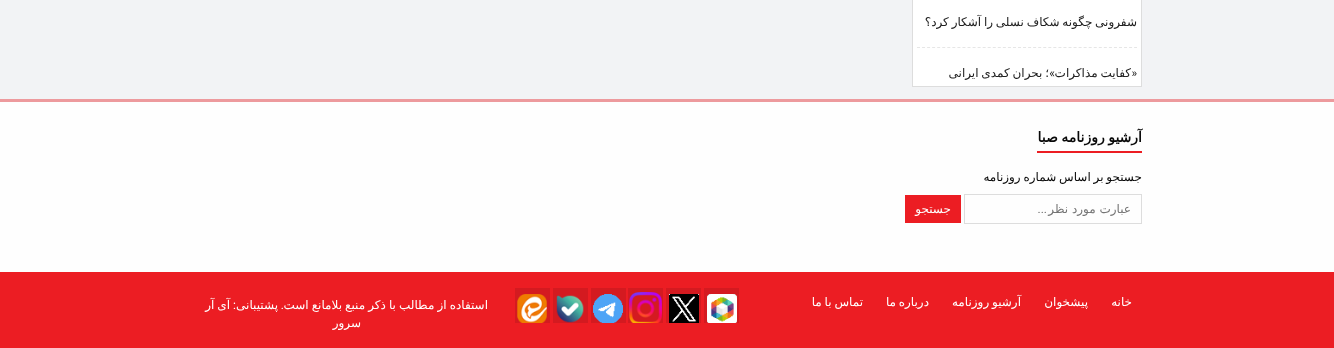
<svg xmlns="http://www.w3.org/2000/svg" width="1334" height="348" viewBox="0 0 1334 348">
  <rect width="100%" height="100%" fill="rgb(242,243,245)"/>
  <rect x="912.5" y="-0.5" width="229" height="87" fill="rgb(255,255,255)" stroke="rgb(221,221,221)"/>
  <text x="1137" y="26" word-spacing="-1" font-family="DejaVu Sans" font-size="12" direction="rtl" fill="rgb(32,32,32)">شفرونی چگونه شکاف نسلی را آشکار کرد؟</text>
  <path d="M917 47.5H1137" fill="none" stroke="rgb(230,230,230)" stroke-dasharray="3 2.05"/>
  <text x="1131" y="77" word-spacing="-1" font-family="DejaVu Sans" font-size="12" direction="rtl" fill="rgb(32,32,32)">کفایت مذاکرات</text>
  <text x="1137" y="77" font-family="Roboto" font-size="12" direction="rtl" fill="rgb(32,32,32)">«</text>
  <text x="1049" y="77" word-spacing="-1" font-family="DejaVu Sans" font-size="12" direction="rtl" fill="rgb(32,32,32)">؛ بحران کمدی ایرانی</text>
  <text x="1055" y="77" font-family="Roboto" font-size="12" direction="rtl" fill="rgb(32,32,32)">»</text>
  <rect x="0" y="102" width="1334" height="170" fill="rgb(254,254,254)"/>
  <rect x="0" y="99" width="1334" height="3" fill="rgb(237,154,157)"/>
  <text x="1142" y="142" word-spacing="-1" font-family="DejaVu Sans" font-size="14" font-weight="bold" direction="rtl" fill="rgb(8,8,8)">آرشیو روزنامه صبا</text>
  <rect x="1037" y="151" width="105" height="2" fill="rgb(236,29,35)"/>
  <text x="1142" y="181" word-spacing="-1" font-family="DejaVu Sans" font-size="12" direction="rtl" fill="rgb(8,8,8)">جستجو بر اساس شماره روزنامه</text>
  <rect x="964.5" y="194.5" width="177" height="29" fill="none" stroke="rgb(221,221,221)"/>
  <text x="1131" y="213" font-family="DejaVu Sans" font-size="12" direction="rtl" fill="rgb(117,117,117)">عبارت مورد نظر</text>
  <text x="1047" y="213" font-family="Roboto" font-size="12" direction="rtl" fill="rgb(117,117,117)">...</text>
  <rect x="905" y="195" width="56" height="28" fill="rgb(236,29,35)"/>
  <text x="951" y="213" font-family="DejaVu Sans" font-size="12" direction="rtl" fill="rgb(255,255,255)">جستجو</text>
  <rect x="0" y="272" width="1334" height="76" fill="rgb(236,29,35)"/>
  <g font-family="DejaVu Sans" font-size="12" direction="rtl" fill="rgb(255,255,255)">
    <text x="1132" y="306">خانه</text>
    <text x="1088" y="306">پیشخوان</text>
    <text x="1021" y="306" word-spacing="-1">آرشیو روزنامه</text>
    <text x="929" y="306" word-spacing="-1">درباره ما</text>
    <text x="863" y="306" word-spacing="-1">تماس با ما</text>
  </g>
  <rect x="704" y="288" width="35" height="35" fill="rgb(212,26,32)"/>
  <image x="707" y="294" width="30" height="29" href="pic1.png"/>
  <rect x="666" y="288" width="35" height="35" fill="rgb(212,26,32)"/>
  <image x="669" y="294" width="30" height="29" href="pic2.png"/>
  <rect x="628" y="288" width="35" height="35" fill="rgb(212,26,32)"/>
  <image x="629" y="292" width="33" height="31" href="pic3.png"/>
  <rect x="591" y="288" width="35" height="35" fill="rgb(212,26,32)"/>
  <image x="593" y="294" width="30" height="29" href="pic4.png"/>
  <rect x="553" y="288" width="35" height="35" fill="rgb(212,26,32)"/>
  <image x="556" y="295" width="28" height="28" href="pic5.png"/>
  <rect x="515" y="288" width="35" height="35" fill="rgb(212,26,32)"/>
  <image x="517" y="294" width="30" height="29" href="pic6.png"/>
  <text x="488" y="309" word-spacing="-0.75" font-family="DejaVu Sans" font-size="12" direction="rtl" fill="rgb(255,255,255)">استفاده از مطالب با ذکر منبع بلامانع است</text>
  <text x="284" y="309" font-family="Roboto" font-size="12" direction="rtl" fill="rgb(255,255,255)">.</text>
  <text x="278" y="309" font-family="DejaVu Sans" font-size="12" direction="rtl" fill="rgb(255,255,255)">پشتیبانی</text>
  <text x="236" y="309" font-family="Roboto" font-size="12" direction="rtl" fill="rgb(255,255,255)">:</text>
  <g font-family="DejaVu Sans" font-size="12" direction="rtl" fill="rgb(255,255,255)">
    <text x="230" y="309" word-spacing="-1">آی آر</text>
    <text x="361" y="327">سرور</text>
  </g>
</svg>
